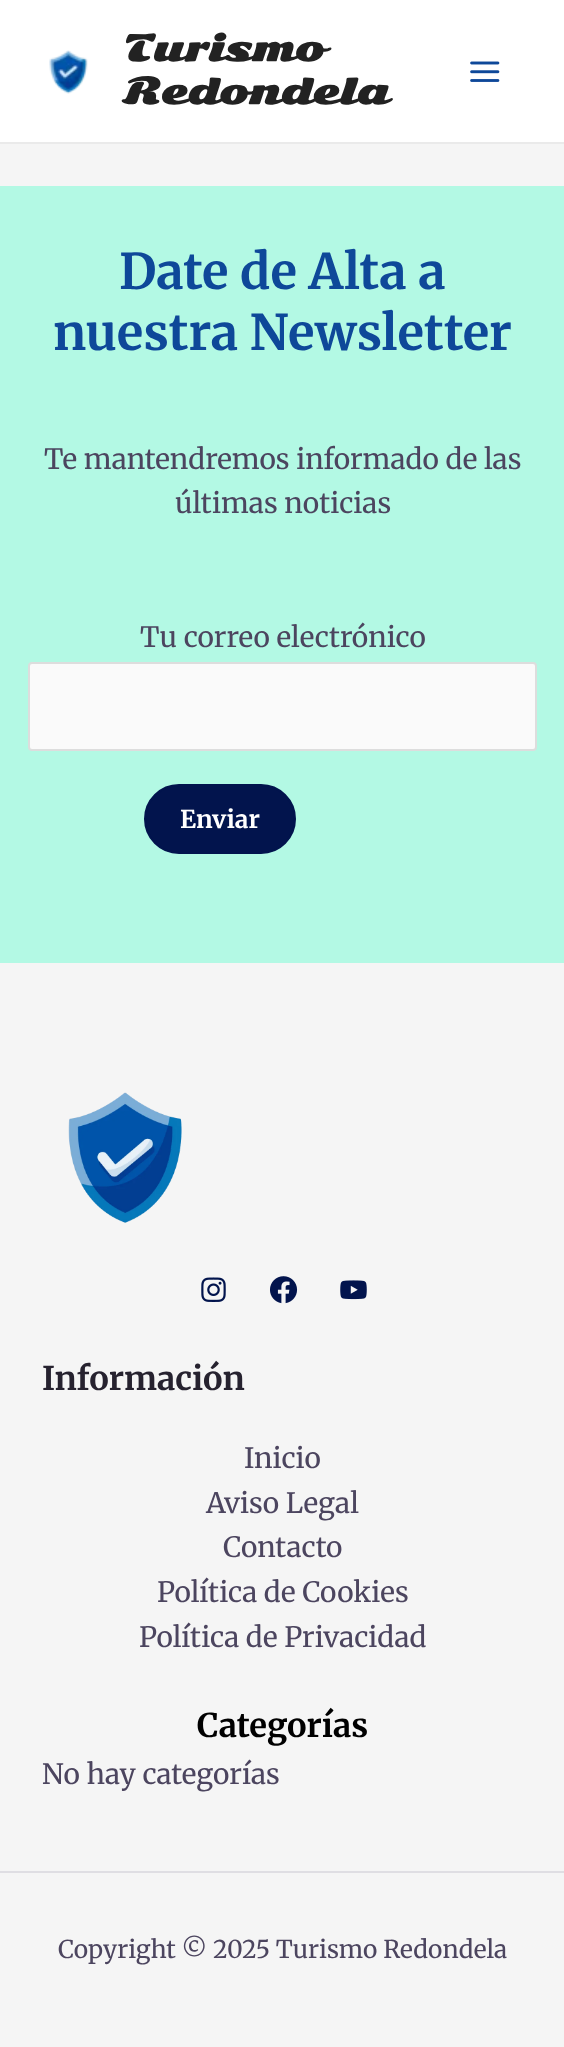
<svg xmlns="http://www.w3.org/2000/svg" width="564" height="2047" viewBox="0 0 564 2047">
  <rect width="100%" height="100%" fill="rgb(245,245,245)"/>
  <rect x="0" y="0" width="564" height="142" fill="rgb(255,255,255)"/>
  <rect x="0" y="142" width="564" height="2" fill="rgb(234,234,234)"/>
  <image x="49" y="50" width="39" height="44" href="pic1.png"/>
  <g font-family="Sonsie One" font-size="35" font-weight="bold" fill="rgb(34,34,34)">
    <text>
      <tspan x="123" y="61">Turismo</tspan>
      <tspan x="123" y="104">Redondela</tspan>
    </text>
  </g>
  <image x="470" y="61" width="30" height="21" href="pic2.png"/>
  <rect x="0" y="186" width="564" height="777" fill="rgb(179,249,228)"/>
  <g font-family="Merriweather" font-size="49" font-weight="bold" fill="rgb(14,72,153)">
    <text x="119" y="289">Date de Alta a</text>
    <text x="53" y="350">nuestra Newsletter</text>
  </g>
  <g font-family="Merriweather" font-size="28" fill="rgb(76,69,95)">
    <text x="44" y="469">Te mantendremos informado de las</text>
    <text x="175" y="513">últimas noticias</text>
    <text x="140" y="647">Tu correo electrónico</text>
  </g>
  <rect x="29" y="663" width="507" height="87" rx="3" fill="rgb(250,250,250)" stroke="rgb(221,221,221)" stroke-width="2"/>
  <rect x="145" y="785" width="150" height="68" rx="34" fill="rgb(2,20,77)" stroke="rgb(2,20,77)" stroke-width="2"/>
  <text x="180" y="828" font-family="Merriweather" font-size="24.5" font-weight="bold" fill="rgb(255,255,255)">Enviar</text>
  <image x="68" y="1092" width="114" height="131" href="pic3.png"/>
  <image x="201" y="1277" width="25" height="25" href="pic4.png"/>
  <image x="270" y="1276" width="28" height="28" href="pic5.png"/>
  <image x="340" y="1280" width="27" height="20" href="pic6.png"/>
  <text x="42" y="1390" font-family="Merriweather" font-size="32.75" font-weight="bold" fill="rgb(38,34,47)">Información</text>
  <g font-family="Merriweather" font-size="28" fill="rgb(76,69,95)">
    <text x="244" y="1468">Inicio</text>
    <text x="206" y="1513">Aviso Legal</text>
    <text x="223" y="1557">Contacto</text>
    <text x="157" y="1602">Política de Cookies</text>
    <text x="139" y="1647">Política de Privacidad</text>
  </g>
  <text x="197" y="1737" font-family="Merriweather" font-size="32.75" font-weight="bold" fill="rgb(0,0,0)">Categorías</text>
  <text x="42" y="1784" font-family="Merriweather" font-size="28" fill="rgb(76,69,95)">No hay categorías</text>
  <rect x="0" y="1871" width="564" height="2" fill="rgb(223,222,227)"/>
  <text x="58" y="1958" font-family="Merriweather" font-size="24.5" fill="rgb(76,69,95)">Copyright © 2025 Turismo Redondela</text>
</svg>
